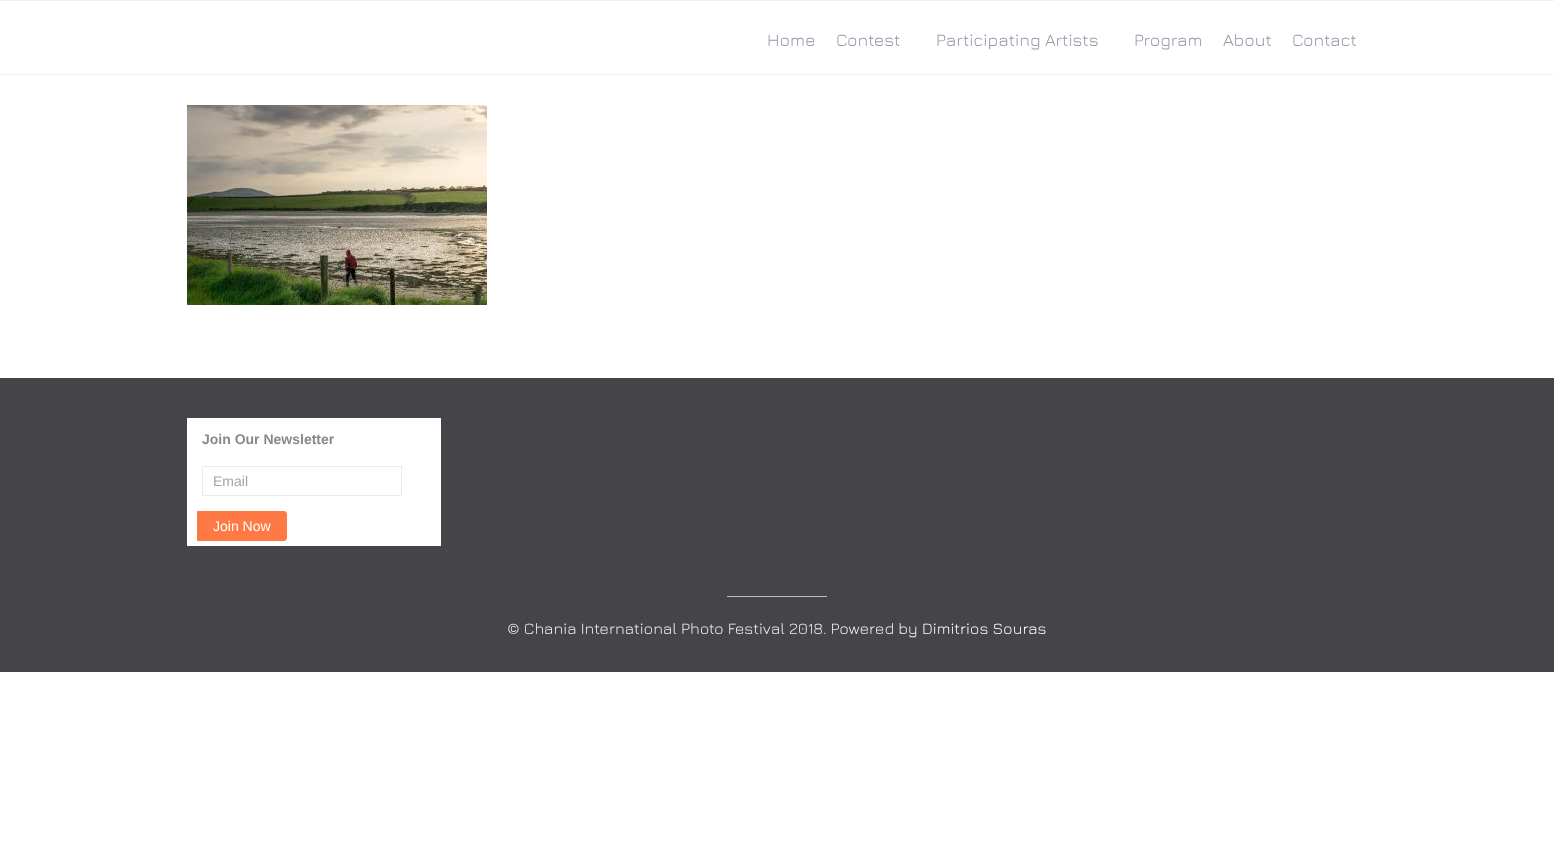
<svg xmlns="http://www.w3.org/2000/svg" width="1554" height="842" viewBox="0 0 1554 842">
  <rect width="100%" height="100%" fill="rgb(255,255,255)"/>
  <rect x="0" y="0" width="1554" height="1" fill="rgb(240,240,240)"/>
  <rect x="0" y="74" width="1554" height="1" fill="rgb(240,240,240)"/>
  <g font-family="Jura" font-size="17.5" font-weight="300" fill="rgb(153,153,170)">
    <text x="767" y="46">Home</text>
    <text x="836" y="46">Contest</text>
    <text x="936" y="46">Participating Artists</text>
    <text x="1134" y="46">Program</text>
    <text x="1223" y="46">About</text>
    <text x="1292" y="46">Contact</text>
  </g>
  <image x="187" y="105" width="300" height="200" href="pic1.png"/>
  <rect x="0" y="378" width="1554" height="294" fill="rgb(68,68,73)"/>
  <rect x="187" y="418" width="254" height="128" fill="rgb(255,255,255)"/>
  <text x="202" y="444" font-family="Liberation Sans" font-size="14" font-weight="bold" fill="rgb(136,136,136)">Join Our Newsletter</text>
  <rect x="202.5" y="466.5" width="199" height="29" fill="none" stroke="rgb(235,235,235)"/>
  <text x="213" y="486" font-family="Liberation Sans" font-size="14" fill="rgb(165,165,165)">Email</text>
  <path d="M197 511H284C285.5 511 287 512.5 287 514V538C287 539.5 285.5 541 284 541H197Z" fill="rgb(255,121,68)"/>
  <text x="213" y="531" font-family="Liberation Sans" font-size="14" fill="rgb(255,255,255)">Join Now</text>
  <rect x="727" y="596" width="100" height="1" fill="rgb(187,187,187)"/>
  <text x="507" y="634" font-family="Jura" font-size="16" font-weight="300" fill="rgb(238,238,238)">© Chania International Photo Festival 2018. Powered by</text>
  <text x="922" y="634" font-family="Jura" font-size="16" font-weight="300" fill="rgb(255,255,255)">Dimitrios Souras</text>
</svg>
